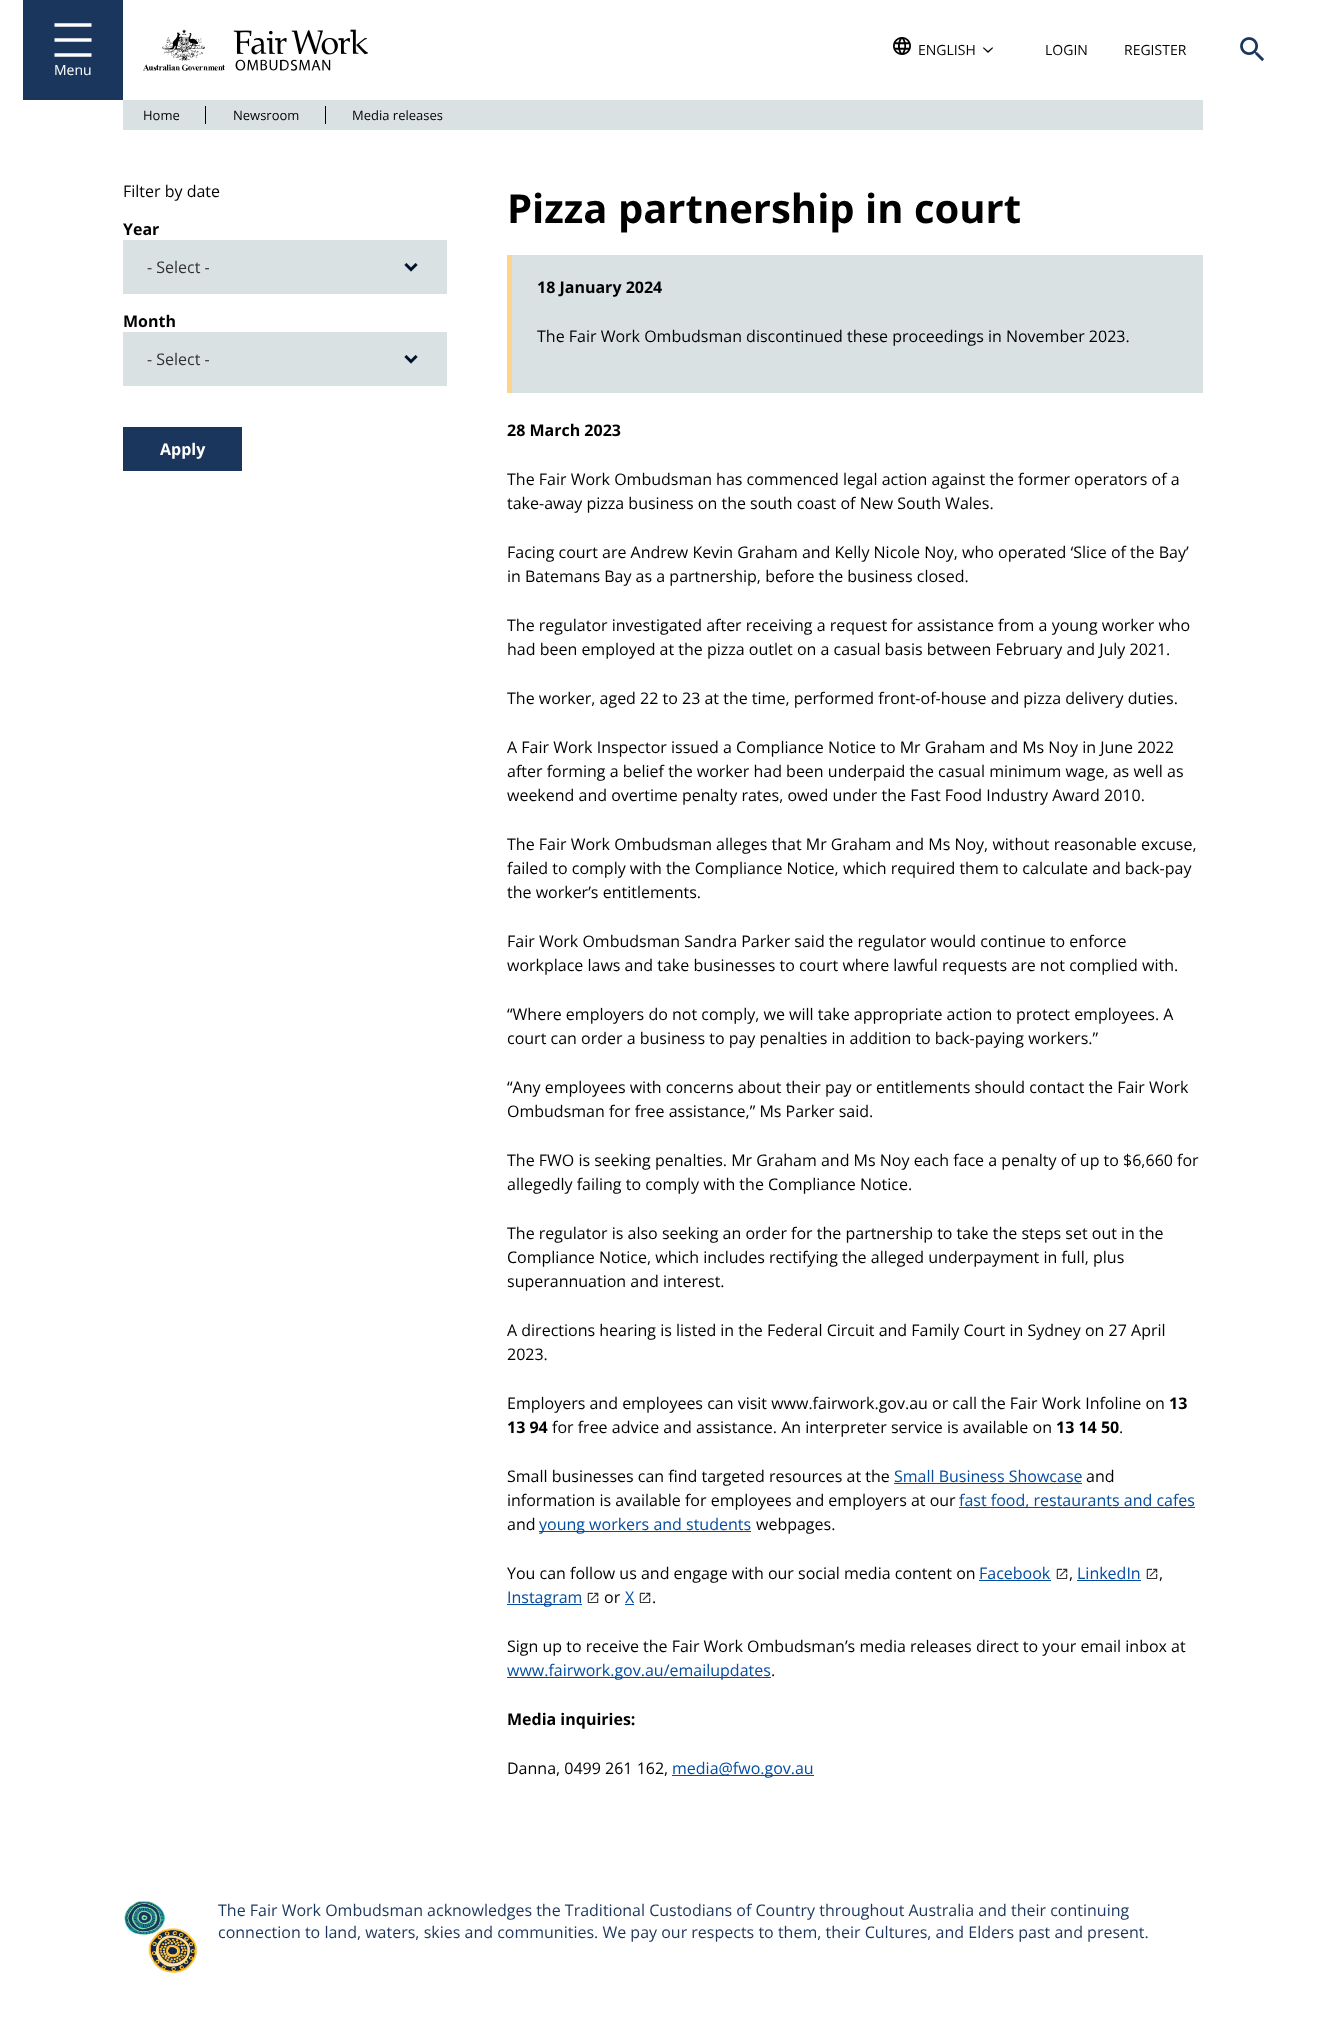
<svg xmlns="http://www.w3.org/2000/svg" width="1325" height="2036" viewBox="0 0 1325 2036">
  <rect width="100%" height="100%" fill="rgb(255,255,255)"/>
  <image x="143" y="29" width="225" height="42" href="pic1.png"/>
  <image x="893" y="37" width="18" height="18" href="pic2.png"/>
  <text x="918" y="55" font-family="Open Sans" font-size="14" fill="rgb(0,0,0)">ENGLISH</text>
  <image x="983" y="47" width="10" height="6" href="pic3.png"/>
  <g font-family="Open Sans" font-size="14" fill="rgb(0,0,0)">
    <text x="1045" y="55">LOGIN</text>
    <text x="1124" y="55">REGISTER</text>
  </g>
  <image x="1240" y="37" width="25" height="25" href="pic4.png"/>
  <rect x="23" y="0" width="100" height="100" fill="rgb(27,54,93)"/>
  <path d="M54.5 55H91.5M54.5 25H91.5" fill="none" stroke="rgb(255,255,255)" stroke-width="3.3"/>
  <path d="M54.5 40H91.5" fill="none" stroke="rgb(255,255,255)" stroke-width="3.3" stroke-linejoin="round"/>
  <text x="54" y="75" font-family="Open Sans" font-size="14" fill="rgb(255,255,255)">Menu</text>
  <rect x="123" y="100" width="1080" height="30" fill="rgb(217,225,226)"/>
  <rect x="205" y="106" width="1" height="18" fill="rgb(0,0,0)"/>
  <text x="143" y="120" font-family="Open Sans" font-size="13" fill="rgb(0,0,0)">Home</text>
  <rect x="325" y="106" width="1" height="18" fill="rgb(0,0,0)"/>
  <g font-family="Open Sans" font-size="13" fill="rgb(0,0,0)">
    <text x="233" y="120">Newsroom</text>
    <text x="352" y="120">Media releases</text>
  </g>
  <text x="123" y="197" font-family="Open Sans" font-size="16" fill="rgb(0,0,0)">Filter by date</text>
  <text x="123" y="235" font-family="Open Sans" font-size="16" font-weight="bold" fill="rgb(0,0,0)">Year</text>
  <rect x="123" y="240" width="324" height="54" fill="rgb(217,225,226)"/>
  <image x="404" y="263" width="14" height="9" href="pic5.png"/>
  <text x="147" y="273" font-family="Open Sans" font-size="16" fill="rgb(50,50,50)">- Select -</text>
  <text x="123" y="327" font-family="Open Sans" font-size="16" font-weight="bold" fill="rgb(0,0,0)">Month</text>
  <rect x="123" y="332" width="324" height="54" fill="rgb(217,225,226)"/>
  <image x="404" y="355" width="14" height="9" href="pic5.png"/>
  <text x="147" y="365" font-family="Open Sans" font-size="16" fill="rgb(50,50,50)">- Select -</text>
  <rect x="123" y="427" width="119" height="44" fill="rgb(27,54,93)"/>
  <text x="160" y="455" font-family="Open Sans" font-size="16" font-weight="bold" fill="rgb(255,255,255)">Apply</text>
  <text x="507" y="223" font-family="Open Sans" font-size="40" font-weight="bold" fill="rgb(0,0,0)">Pizza partnership in court</text>
  <rect x="512" y="255" width="691" height="138" fill="rgb(217,225,226)"/>
  <rect x="507" y="255" width="5" height="138" fill="rgb(255,211,140)"/>
  <text x="537" y="293" font-family="Open Sans" font-size="16" font-weight="bold" fill="rgb(0,0,0)">18 January 2024</text>
  <text x="537" y="342" font-family="Open Sans" font-size="16" fill="rgb(0,0,0)">The Fair Work Ombudsman discontinued these proceedings in November 2023.</text>
  <text x="507" y="436" font-family="Open Sans" font-size="16" font-weight="bold" fill="rgb(0,0,0)">28 March 2023</text>
  <g font-family="Open Sans" font-size="16" fill="rgb(0,0,0)">
    <text>
      <tspan x="507" y="485">The Fair Work Ombudsman has commenced legal action against the former operators of a</tspan>
      <tspan x="507" y="509">take-away pizza business on the south coast of New South Wales.</tspan>
    </text>
    <text>
      <tspan x="507" y="558">Facing court are Andrew Kevin Graham and Kelly Nicole Noy, who operated ‘Slice of the Bay’</tspan>
      <tspan x="507" y="582">in Batemans Bay as a partnership, before the business closed.</tspan>
    </text>
    <text>
      <tspan x="507" y="631">The regulator investigated after receiving a request for assistance from a young worker who</tspan>
      <tspan x="507" y="655">had been employed at the pizza outlet on a casual basis between February and July 2021.</tspan>
    </text>
    <text x="507" y="704">The worker, aged 22 to 23 at the time, performed front-of-house and pizza delivery duties.</text>
    <text>
      <tspan x="507" y="753">A Fair Work Inspector issued a Compliance Notice to Mr Graham and Ms Noy in June 2022</tspan>
      <tspan x="507" y="777">after forming a belief the worker had been underpaid the casual minimum wage, as well as</tspan>
      <tspan x="507" y="801">weekend and overtime penalty rates, owed under the Fast Food Industry Award 2010.</tspan>
    </text>
    <text>
      <tspan x="507" y="850">The Fair Work Ombudsman alleges that Mr Graham and Ms Noy, without reasonable excuse,</tspan>
      <tspan x="507" y="874">failed to comply with the Compliance Notice, which required them to calculate and back-pay</tspan>
      <tspan x="507" y="898">the worker’s entitlements.</tspan>
    </text>
    <text>
      <tspan x="507" y="947">Fair Work Ombudsman Sandra Parker said the regulator would continue to enforce</tspan>
      <tspan x="507" y="971">workplace laws and take businesses to court where lawful requests are not complied with.</tspan>
    </text>
    <text>
      <tspan x="507" y="1020">“Where employers do not comply, we will take appropriate action to protect employees. A</tspan>
      <tspan x="507" y="1044">court can order a business to pay penalties in addition to back-paying workers.”</tspan>
    </text>
    <text>
      <tspan x="507" y="1093">“Any employees with concerns about their pay or entitlements should contact the Fair Work</tspan>
      <tspan x="507" y="1117">Ombudsman for free assistance,” Ms Parker said.</tspan>
    </text>
    <text>
      <tspan x="507" y="1166">The FWO is seeking penalties. Mr Graham and Ms Noy each face a penalty of up to $6,660 for</tspan>
      <tspan x="507" y="1190">allegedly failing to comply with the Compliance Notice.</tspan>
    </text>
    <text>
      <tspan x="507" y="1239">The regulator is also seeking an order for the partnership to take the steps set out in the</tspan>
      <tspan x="507" y="1263">Compliance Notice, which includes rectifying the alleged underpayment in full, plus</tspan>
      <tspan x="507" y="1287">superannuation and interest.</tspan>
    </text>
    <text>
      <tspan x="507" y="1336">A directions hearing is listed in the Federal Circuit and Family Court in Sydney on 27 April</tspan>
      <tspan x="507" y="1360">2023.</tspan>
    </text>
    <text x="507" y="1409">Employers and employees can visit www.fairwork.gov.au or call the Fair Work Infoline on</text>
  </g>
  <g font-family="Open Sans" font-size="16" font-weight="bold" fill="rgb(0,0,0)">
    <text x="1169" y="1409">13</text>
    <text x="507" y="1433">13 94</text>
  </g>
  <text x="552" y="1433" font-family="Open Sans" font-size="16" fill="rgb(0,0,0)">for free advice and assistance. An interpreter service is available on</text>
  <text x="1056" y="1433" font-family="Open Sans" font-size="16" font-weight="bold" fill="rgb(0,0,0)">13 14 50</text>
  <g font-family="Open Sans" font-size="16" fill="rgb(0,0,0)">
    <text x="1119" y="1433">.</text>
    <text x="507" y="1482">Small businesses can find targeted resources at the</text>
  </g>
  <text x="894" y="1482" font-family="Open Sans" font-size="16" fill="rgb(2,76,162)">Small Business Showcase</text>
  <rect x="894" y="1483" width="188" height="1" fill="rgb(2,76,162)"/>
  <g font-family="Open Sans" font-size="16" fill="rgb(0,0,0)">
    <text x="1086" y="1482">and</text>
    <text x="507" y="1506">information is available for employees and employers at our</text>
  </g>
  <rect x="959" y="1507" width="236" height="1" fill="rgb(2,76,162)"/>
  <text x="959" y="1506" font-family="Open Sans" font-size="16" fill="rgb(2,76,162)">fast food, restaurants and cafes</text>
  <text x="507" y="1530" font-family="Open Sans" font-size="16" fill="rgb(0,0,0)">and</text>
  <rect x="539" y="1531" width="212" height="1" fill="rgb(2,76,162)"/>
  <text x="539" y="1530" font-family="Open Sans" font-size="16" fill="rgb(2,76,162)">young workers and students</text>
  <g font-family="Open Sans" font-size="16" fill="rgb(0,0,0)">
    <text x="756" y="1530">webpages.</text>
    <text x="507" y="1579">You can follow us and engage with our social media content on</text>
  </g>
  <text x="979" y="1579" font-family="Open Sans" font-size="16" fill="rgb(2,76,162)">Facebook</text>
  <rect x="979" y="1580" width="72" height="1" fill="rgb(2,76,162)"/>
  <image x="1056" y="1568" width="12" height="11" href="pic6.png"/>
  <text x="1069" y="1579" font-family="Open Sans" font-size="16" fill="rgb(0,0,0)">,</text>
  <text x="1077" y="1579" font-family="Open Sans" font-size="16" fill="rgb(2,76,162)">LinkedIn</text>
  <rect x="1077" y="1580" width="64" height="1" fill="rgb(2,76,162)"/>
  <image x="1146" y="1568" width="12" height="11" href="pic6.png"/>
  <text x="1159" y="1579" font-family="Open Sans" font-size="16" fill="rgb(0,0,0)">,</text>
  <rect x="507" y="1604" width="75" height="1" fill="rgb(2,76,162)"/>
  <text x="507" y="1603" font-family="Open Sans" font-size="16" fill="rgb(2,76,162)">Instagram</text>
  <image x="587" y="1592" width="12" height="11" href="pic6.png"/>
  <text x="604" y="1603" font-family="Open Sans" font-size="16" fill="rgb(0,0,0)">or</text>
  <text x="625" y="1603" font-family="Open Sans" font-size="16" fill="rgb(2,76,162)">X</text>
  <rect x="625" y="1604" width="9" height="1" fill="rgb(2,76,162)"/>
  <image x="639" y="1592" width="12" height="11" href="pic6.png"/>
  <g font-family="Open Sans" font-size="16" fill="rgb(0,0,0)">
    <text x="652" y="1603">.</text>
    <text x="507" y="1652">Sign up to receive the Fair Work Ombudsman’s media releases direct to your email inbox at</text>
  </g>
  <rect x="507" y="1677" width="264" height="1" fill="rgb(2,76,162)"/>
  <text x="507" y="1676" font-family="Open Sans" font-size="16" fill="rgb(2,76,162)">www.fairwork.gov.au/emailupdates</text>
  <text x="771" y="1676" font-family="Open Sans" font-size="16" fill="rgb(0,0,0)">.</text>
  <text x="507" y="1725" font-family="Open Sans" font-size="16" font-weight="bold" fill="rgb(0,0,0)">Media inquiries:</text>
  <text x="507" y="1774" font-family="Open Sans" font-size="16" fill="rgb(0,0,0)">Danna, 0499 261 162,</text>
  <rect x="672" y="1775" width="142" height="1" fill="rgb(2,76,162)"/>
  <text x="672" y="1774" font-family="Open Sans" font-size="16" fill="rgb(2,76,162)">media@fwo.gov.au</text>
  <image x="124" y="1901" width="74" height="72" href="pic7.png"/>
  <g font-family="Open Sans" font-size="16" fill="rgb(27,54,93)">
    <text>
      <tspan x="218" y="1916">The Fair Work Ombudsman acknowledges the Traditional Custodians of Country throughout Australia and their continuing</tspan>
      <tspan x="218" y="1938">connection to land, waters, skies and communities. We pay our respects to them, their Cultures, and Elders past and present.</tspan>
    </text>
  </g>
</svg>
